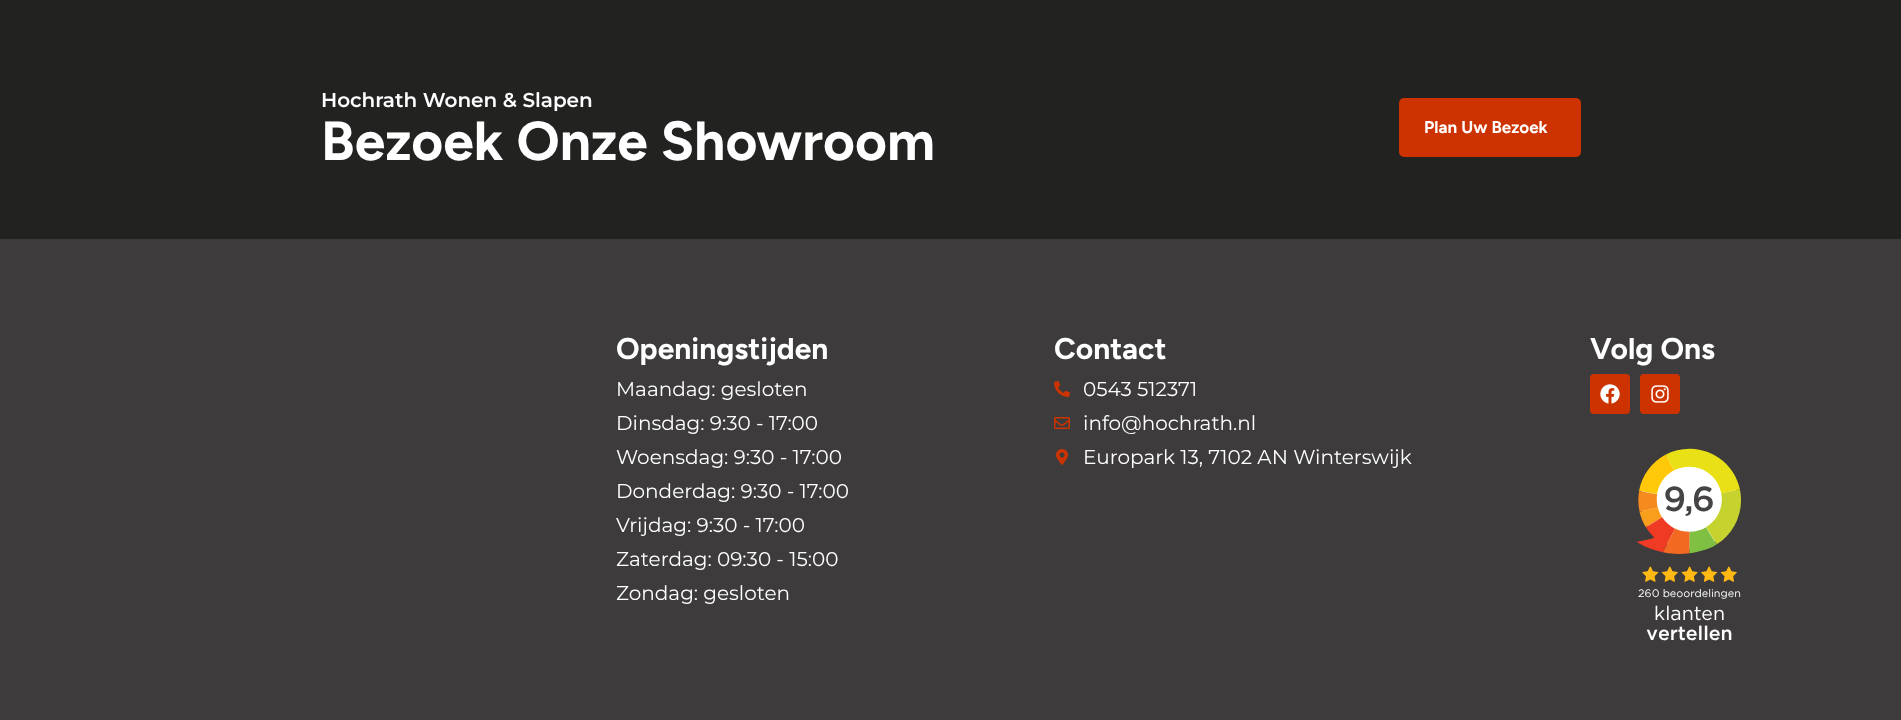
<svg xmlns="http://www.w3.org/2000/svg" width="1901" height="720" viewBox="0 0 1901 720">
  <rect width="100%" height="100%" fill="rgb(61,59,59)"/>
  <rect x="0" y="0" width="1901" height="239" fill="rgb(34,34,33)"/>
  <text x="321" y="107" font-family="Montserrat" font-size="20" font-weight="600" fill="rgb(255,255,255)">Hochrath Wonen &amp; Slapen</text>
  <text x="321" y="160" font-family="Figtree" font-size="55" font-weight="bold" fill="rgb(255,255,255)">Bezoek Onze Showroom</text>
  <rect x="1399" y="98" width="182" height="59" rx="5" fill="rgb(204,51,0)"/>
  <text x="1424" y="133" font-family="Figtree" font-size="17" font-weight="bold" fill="rgb(255,255,255)">Plan Uw Bezoek</text>
  <text x="616" y="359" font-family="Figtree" font-size="30" font-weight="bold" fill="rgb(255,255,255)">Openingstijden</text>
  <g font-family="Montserrat" font-size="20" fill="rgb(255,255,255)">
    <text>
      <tspan x="616" y="396">Maandag: gesloten</tspan>
      <tspan x="616" y="430">Dinsdag: 9:30 - 17:00</tspan>
      <tspan x="616" y="464">Woensdag: 9:30 - 17:00</tspan>
      <tspan x="616" y="498">Donderdag: 9:30 - 17:00</tspan>
      <tspan x="616" y="532">Vrijdag: 9:30 - 17:00</tspan>
      <tspan x="616" y="566">Zaterdag: 09:30 - 15:00</tspan>
      <tspan x="616" y="600">Zondag: gesloten</tspan>
    </text>
  </g>
  <text x="1054" y="359" font-family="Figtree" font-size="30" font-weight="bold" fill="rgb(255,255,255)">Contact</text>
  <image x="1054" y="381" width="16" height="16" href="pic1.png"/>
  <text x="1083" y="396" font-family="Montserrat" font-size="20" fill="rgb(255,255,255)">0543 512371</text>
  <image x="1054" y="417" width="16" height="12" href="pic2.png"/>
  <text x="1083" y="430" font-family="Montserrat" font-size="20" fill="rgb(255,255,255)">info@hochrath.nl</text>
  <image x="1056" y="449" width="12" height="16" href="pic3.png"/>
  <text x="1083" y="464" font-family="Montserrat" font-size="20" fill="rgb(255,255,255)">Europark 13, 7102 AN Winterswijk</text>
  <text x="1590" y="359" font-family="Figtree" font-size="30" font-weight="bold" fill="rgb(255,255,255)">Volg Ons</text>
  <rect x="1590" y="374" width="40" height="40" rx="4" fill="rgb(204,51,0)"/>
  <image x="1600" y="384" width="20" height="20" href="pic4.png"/>
  <rect x="1640" y="374" width="40" height="40" rx="4" fill="rgb(204,51,0)"/>
  <image x="1651" y="385" width="18" height="18" href="pic5.png"/>
  <image x="1636" y="448" width="106" height="193" href="pic6.png"/>
</svg>
